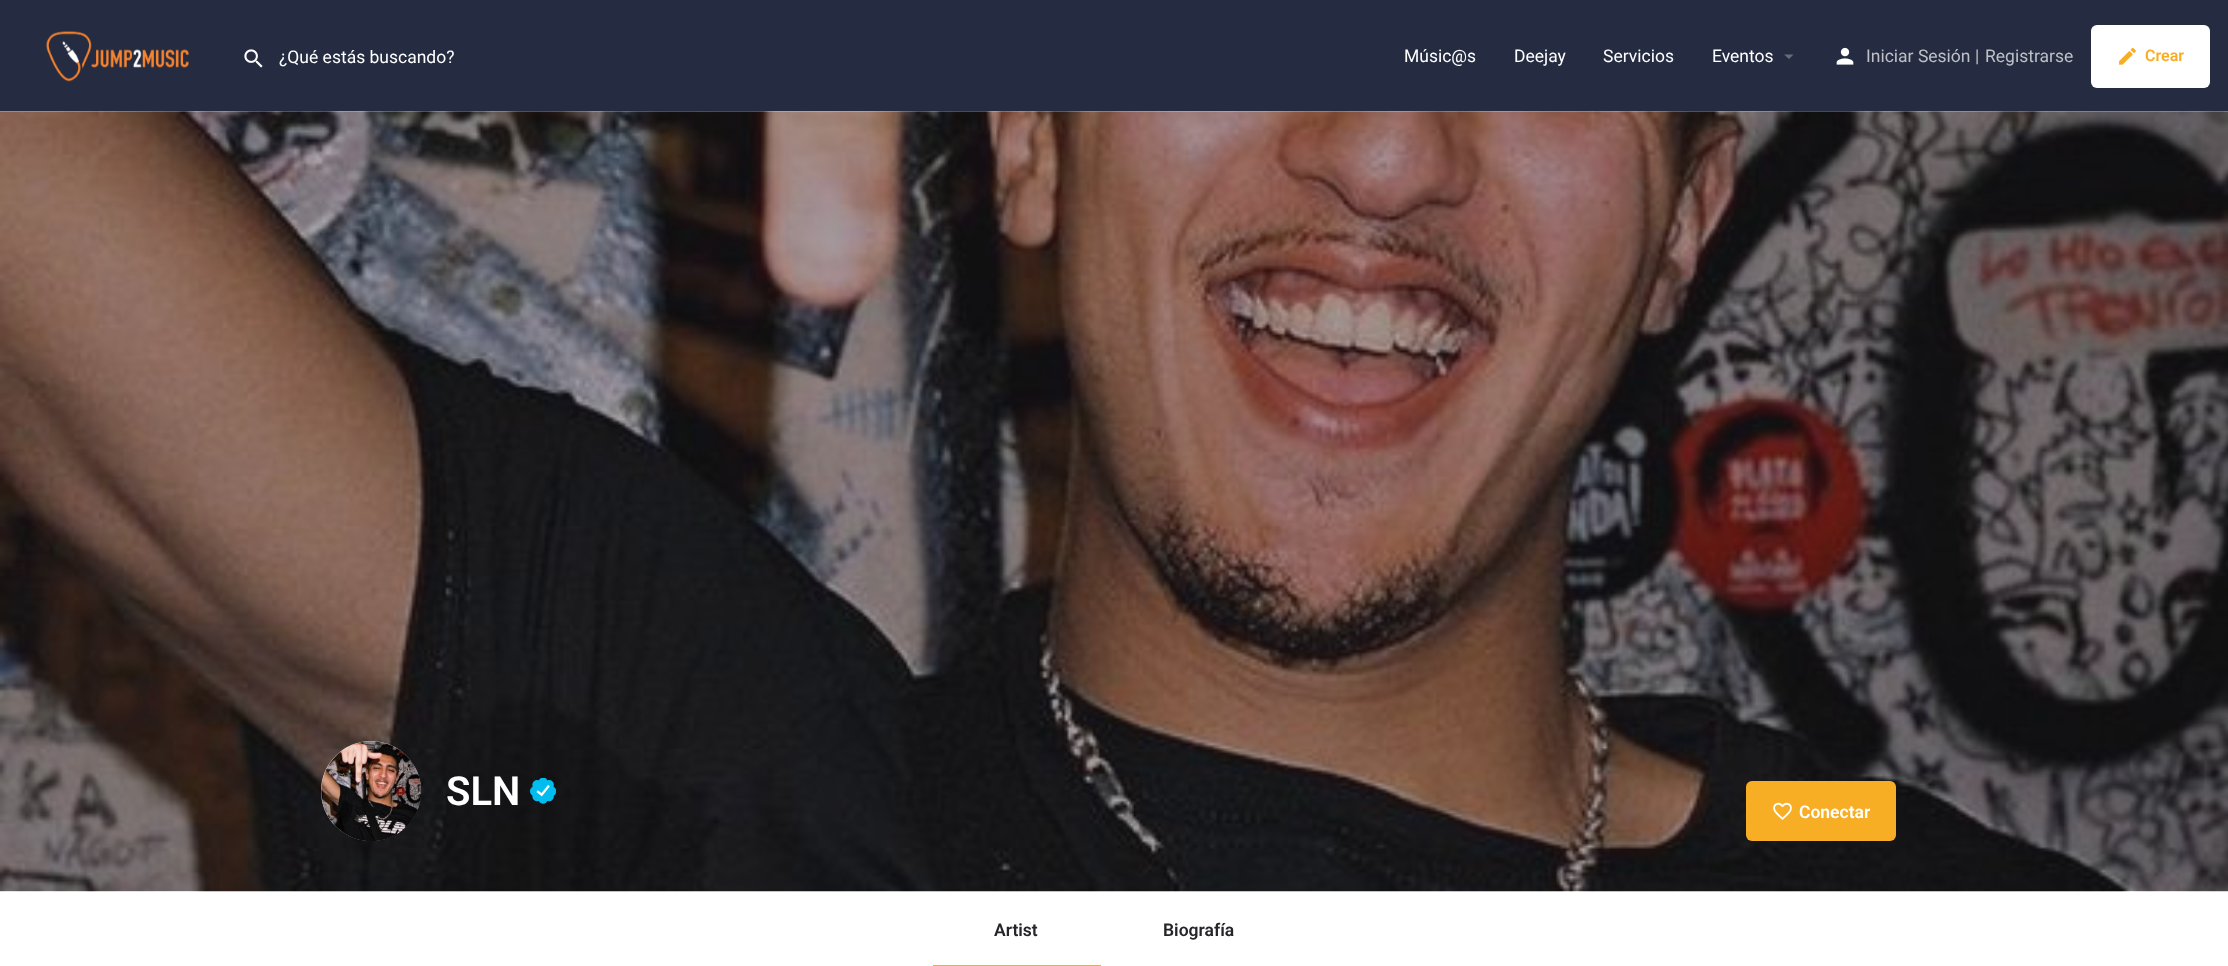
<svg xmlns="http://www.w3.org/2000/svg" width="2228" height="966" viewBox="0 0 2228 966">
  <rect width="100%" height="100%" fill="rgb(255,255,255)"/>
  <rect x="0" y="0" width="2228" height="111" fill="rgb(37,44,65)"/>
  <image x="46" y="31" width="143" height="51" href="pic1.png"/>
  <image x="244" y="49" width="19" height="19" href="pic2.png"/>
  <g font-family="Roboto" font-size="17.5" fill="rgb(255,255,255)">
    <text x="279" y="63">¿Qué estás buscando?</text>
    <text x="1404" y="62">Músic@s</text>
    <text x="1514" y="62">Deejay</text>
    <text x="1603" y="62">Servicios</text>
    <text x="1712" y="62">Eventos</text>
  </g>
  <path d="M1784 54.5H1793.5L1789 59Z" fill="rgb(102,107,122)"/>
  <image x="1836" y="47" width="18" height="18" href="pic3.png"/>
  <g font-family="Roboto" font-size="17.5" fill="rgb(190,192,198)">
    <text x="1866" y="62">Iniciar Sesión</text>
    <text x="1975" y="62">|</text>
    <text x="1985" y="62">Registrarse</text>
  </g>
  <rect x="2091" y="25" width="119" height="63" rx="6" fill="rgb(255,255,255)"/>
  <image x="2119" y="47" width="17" height="18" href="pic4.png"/>
  <text x="2145" y="61" font-family="Roboto" font-size="16" font-weight="600" fill="rgb(247,174,37)">Crear</text>
  <image x="0" y="111" width="2228" height="781" href="pic5.png"/>
  <circle cx="371" cy="791" r="50" fill="rgb(221,229,230)"/>
  <image x="321" y="741" width="101" height="100" href="pic6.png"/>
  <text x="446" y="805" font-family="Roboto" font-size="40" font-weight="600" fill="rgb(255,255,255)">SLN</text>
  <image x="530" y="778" width="26" height="26" href="pic7.png"/>
  <rect x="1746" y="781" width="150" height="60" rx="6" fill="rgb(247,174,37)"/>
  <image x="1773" y="802" width="19" height="18" href="pic8.png"/>
  <text x="1799" y="818" font-family="Roboto" font-size="17.5" font-weight="600" fill="rgb(255,255,255)">Conectar</text>
  <text x="994" y="936" font-family="Roboto" font-size="17.5" font-weight="600" fill="rgb(36,36,41)">Artist</text>
  <rect x="933" y="965" width="168" height="1" fill="rgb(247,174,37)"/>
  <text x="1163" y="936" font-family="Roboto" font-size="17.5" font-weight="600" fill="rgb(36,36,41)">Biografía</text>
</svg>
